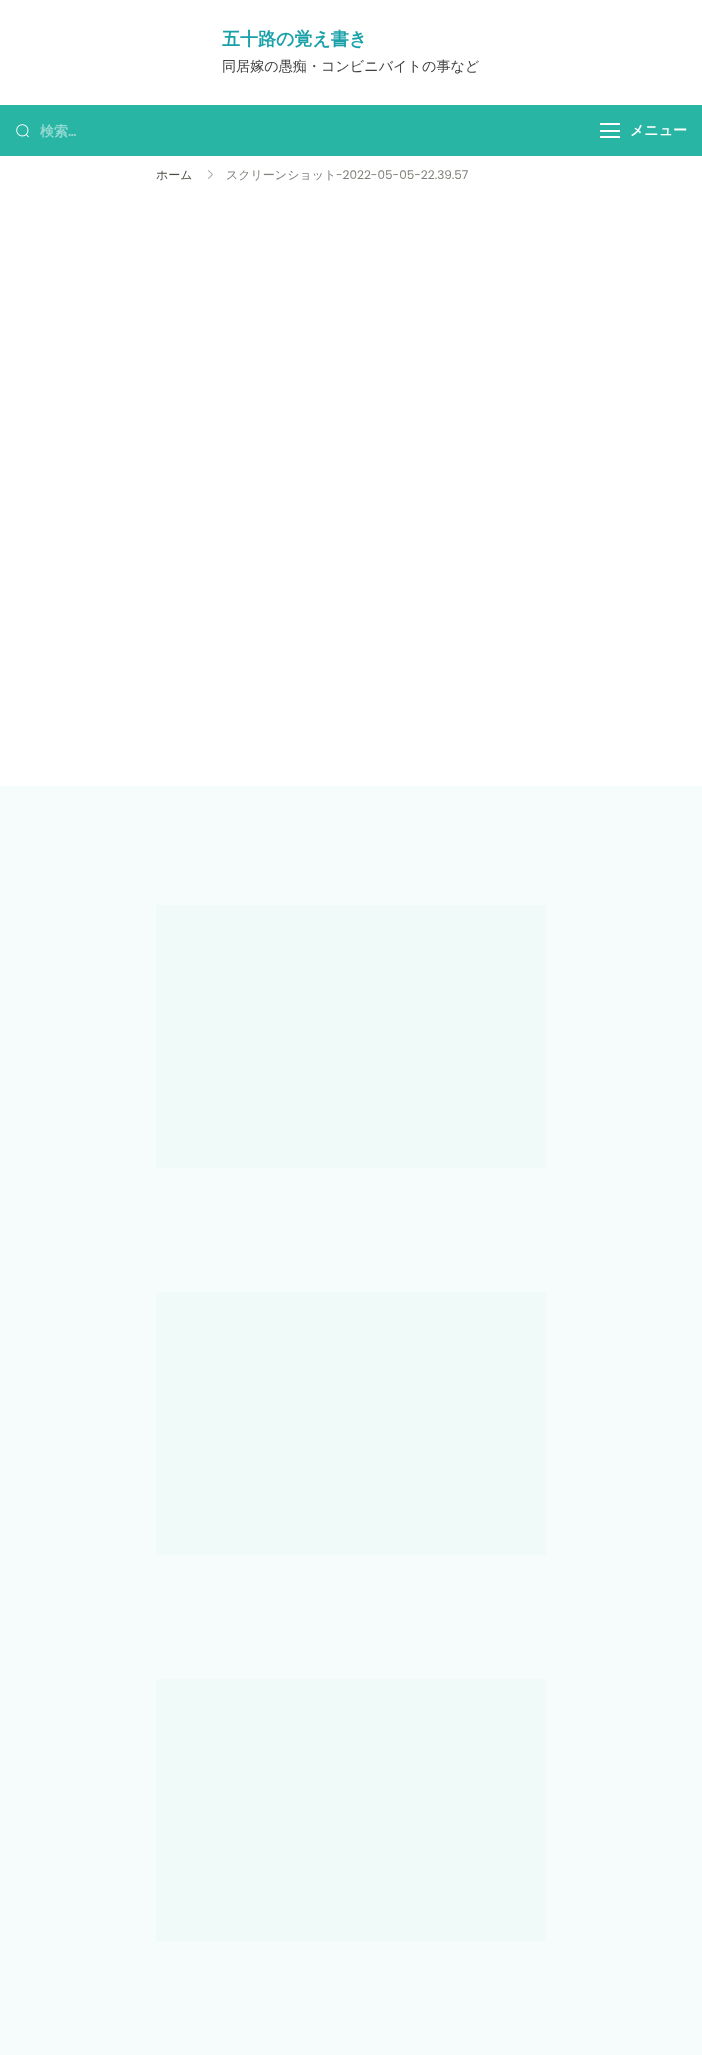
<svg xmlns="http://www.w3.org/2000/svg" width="702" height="2055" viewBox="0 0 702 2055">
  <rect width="100%" height="100%" fill="rgb(255,255,255)"/>
  <text x="222" y="45" font-family="WenQuanYi Zen Hei" font-size="18" font-weight="bold" fill="rgb(25,161,170)">五十路の覚え書き</text>
  <text x="222" y="71" font-family="WenQuanYi Zen Hei" font-size="14.1" font-weight="500" fill="rgb(64,64,64)">同居嫁の愚痴・コンビニバイトの事など</text>
  <rect x="0" y="105" width="702" height="51" fill="rgb(40,181,164)"/>
  <image x="16" y="124" width="13" height="14" href="pic1.png"/>
  <text x="40" y="136" font-family="WenQuanYi Zen Hei" font-size="14" font-weight="bold" fill="rgb(148,218,210)">検索</text>
  <text x="68" y="136" font-family="Poppins" font-size="14" font-weight="bold" fill="rgb(148,218,210)">…</text>
  <rect x="600" y="123" width="20" height="2" fill="rgb(255,255,255)"/>
  <rect x="600" y="130" width="20" height="2" fill="rgb(255,255,255)"/>
  <rect x="600" y="136" width="20" height="2" fill="rgb(255,255,255)"/>
  <text x="630" y="135" font-family="WenQuanYi Zen Hei" font-size="14" font-weight="bold" fill="rgb(255,255,255)">メニュー</text>
  <text x="156" y="179" font-family="WenQuanYi Zen Hei" font-size="12" font-weight="500" fill="rgb(73,77,65)">ホーム</text>
  <image x="208" y="170" width="5" height="9" href="pic2.png"/>
  <text x="226" y="179" font-family="WenQuanYi Zen Hei" font-size="12" font-weight="500" fill="rgb(128,130,122)">スクリーンショット</text>
  <text x="336" y="179" font-family="Poppins" font-size="12" fill="rgb(128,130,122)">-2022-05-05-22.39.57</text>
  <rect x="0" y="786" width="702" height="1269" fill="rgb(245,252,251)"/>
  <rect x="156" y="905" width="390" height="263" fill="rgb(239,250,249)"/>
  <rect x="156" y="1292" width="390" height="263" fill="rgb(239,250,249)"/>
  <rect x="156" y="1679" width="390" height="263" fill="rgb(239,250,249)"/>
</svg>
